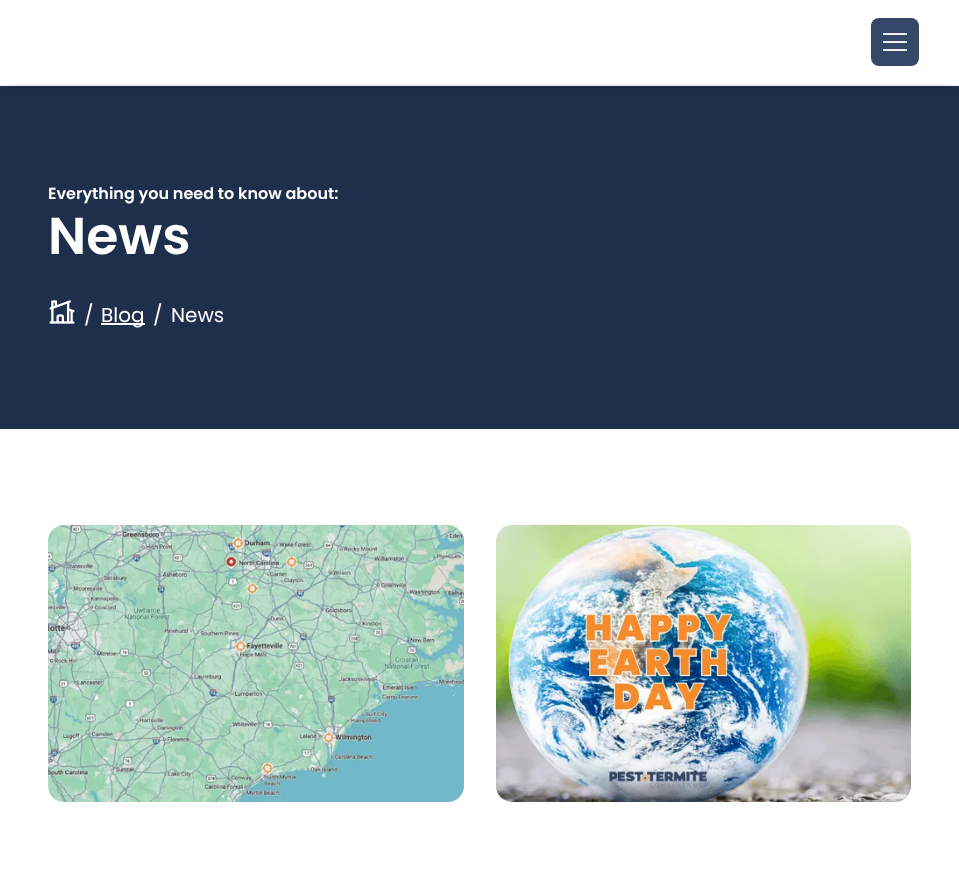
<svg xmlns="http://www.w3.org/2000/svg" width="959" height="876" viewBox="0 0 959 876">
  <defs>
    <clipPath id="clip1"><rect x="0" y="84" width="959" height="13"/></clipPath>
  </defs>
  <rect width="100%" height="100%" fill="rgb(255,255,255)"/>
  <rect x="0" y="86" width="959" height="343" fill="rgb(30,47,76)"/>
  <g clip-path="url(#clip1)">
    <rect x="4" y="16" width="951" height="76" fill="rgba(0,0,0,0.08)" filter="blur(8px)"/>
  </g>
  <rect x="871" y="18" width="48" height="48" rx="8" fill="rgb(54,72,104)"/>
  <rect x="883" y="33" width="24" height="2" fill="rgb(239,239,239)"/>
  <rect x="883" y="41" width="24" height="2" fill="rgb(239,239,239)"/>
  <rect x="883" y="49" width="24" height="2" fill="rgb(239,239,239)"/>
  <text x="48" y="199" font-family="Poppins" font-size="16" font-weight="600" fill="rgb(255,255,255)">Everything you need to know about:</text>
  <text x="48" y="254" font-family="Poppins" font-size="52" font-weight="600" fill="rgb(255,255,255)">News</text>
  <image x="49" y="300" width="26" height="24" href="pic1.png"/>
  <text x="84" y="322" font-family="Poppins" font-size="20" fill="rgb(255,255,255)">/</text>
  <rect x="101" y="323" width="44" height="2" fill="rgb(255,255,255)"/>
  <g font-family="Poppins" font-size="20" fill="rgb(255,255,255)">
    <text x="101" y="322">Blog</text>
    <text x="153" y="322">/</text>
    <text x="171" y="322">News</text>
  </g>
  <image x="48" y="525" width="416" height="277" href="pic2.png"/>
  <image x="496" y="525" width="415" height="277" href="pic3.png"/>
</svg>
